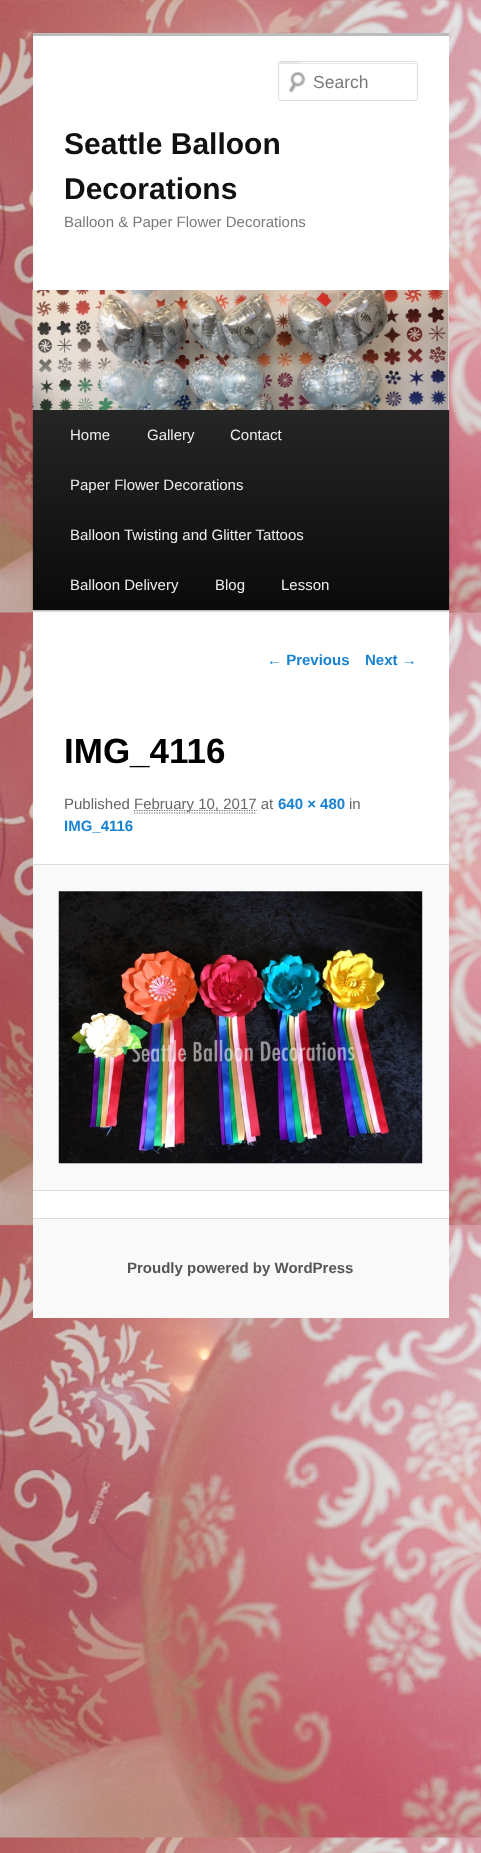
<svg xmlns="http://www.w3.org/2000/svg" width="481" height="1853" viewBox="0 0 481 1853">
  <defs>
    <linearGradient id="g1" gradientUnits="userSpaceOnUse" x1="241" y1="410" x2="241" y2="610"><stop offset="0" stop-color="rgb(37,37,37)"/><stop offset="1" stop-color="rgb(10,10,10)"/></linearGradient>
  </defs>
  <rect width="100%" height="100%" fill="rgb(255,255,255)"/>
  <image x="0" y="0" width="481" height="1853" href="pic1.png"/>
  <rect x="33" y="36" width="416" height="1182" fill="rgb(255,255,255)"/>
  <rect x="33" y="33" width="416" height="3" fill="rgb(187,187,187)"/>
  <image x="288" y="71" width="18" height="22" href="pic2.png"/>
  <path d="M280 64H415C416 64 416 64 416 65V63H302C302 63 279 57 279 65C279 64 279 64 280 64Z" fill="rgb(230,230,230)"/>
  <rect x="278.5" y="61.5" width="139" height="39" rx="2" fill="none" stroke="rgb(221,221,221)"/>
  <text x="313" y="88" font-family="Liberation Sans" font-size="17.5" fill="rgb(122,122,122)">Search</text>
  <g font-family="Liberation Sans" font-size="30" font-weight="bold" fill="rgb(17,17,17)">
    <text>
      <tspan x="64" y="154">Seattle Balloon</tspan>
      <tspan x="64" y="199">Decorations</tspan>
    </text>
  </g>
  <text x="64" y="227" font-family="Liberation Sans" font-size="15" fill="rgb(122,122,122)">Balloon &amp; Paper Flower Decorations</text>
  <rect x="33" y="411" width="416" height="200" fill="rgba(0,0,0,0.4)" filter="blur(1px)"/>
  <image x="32" y="290" width="417" height="120" href="pic3.png"/>
  <rect x="33" y="410" width="416" height="200" fill="url(#g1)"/>
  <g font-family="Liberation Sans" font-size="15" fill="rgb(238,238,238)">
    <text x="70" y="440">Home</text>
    <text x="147" y="440">Gallery</text>
    <text x="230" y="440">Contact</text>
    <text x="70" y="490">Paper Flower Decorations</text>
    <text x="70" y="540">Balloon Twisting and Glitter Tattoos</text>
    <text x="70" y="590">Balloon Delivery</text>
    <text x="215" y="590">Blog</text>
    <text x="281" y="590">Lesson</text>
  </g>
  <g font-family="Liberation Sans" font-size="15" font-weight="bold" fill="rgb(25,130,209)">
    <text x="267" y="665">← Previous</text>
    <text x="365" y="665">Next →</text>
  </g>
  <text x="64" y="763" font-family="Liberation Sans" font-size="35" font-weight="bold" fill="rgb(0,0,0)">IMG_4116</text>
  <text x="64" y="809" font-family="Liberation Sans" font-size="15" fill="rgb(102,102,102)">Published</text>
  <path d="M134 813H256" fill="none" stroke="rgb(102,102,102)" stroke-width="1.2" stroke-dasharray="1.25 1.25"/>
  <path d="M134 810.5H257" fill="none" stroke="rgb(102,102,102)" stroke-width="1.2" stroke-dasharray="1.25 1.25"/>
  <text x="134" y="809" font-family="Liberation Sans" font-size="15" fill="rgb(102,102,102)">February 10, 2017 at</text>
  <text x="278" y="809" font-family="Liberation Sans" font-size="15" font-weight="bold" fill="rgb(25,130,209)">640 × 480</text>
  <text x="349" y="809" font-family="Liberation Sans" font-size="15" fill="rgb(102,102,102)">in</text>
  <text x="64" y="831" font-family="Liberation Sans" font-size="15" font-weight="bold" fill="rgb(25,130,209)">IMG_4116</text>
  <rect x="33" y="865" width="416" height="325" fill="rgb(249,249,249)"/>
  <rect x="33" y="864" width="416" height="1" fill="rgb(221,221,221)"/>
  <rect x="33" y="1190" width="416" height="1" fill="rgb(221,221,221)"/>
  <image x="58" y="891" width="365" height="273" href="pic4.png"/>
  <rect x="33" y="1219" width="416" height="99" fill="rgb(249,249,249)"/>
  <rect x="33" y="1218" width="416" height="1" fill="rgb(221,221,221)"/>
  <text x="127" y="1273" font-family="Liberation Sans" font-size="15" font-weight="bold" fill="rgb(85,85,85)">Proudly powered by WordPress</text>
</svg>
